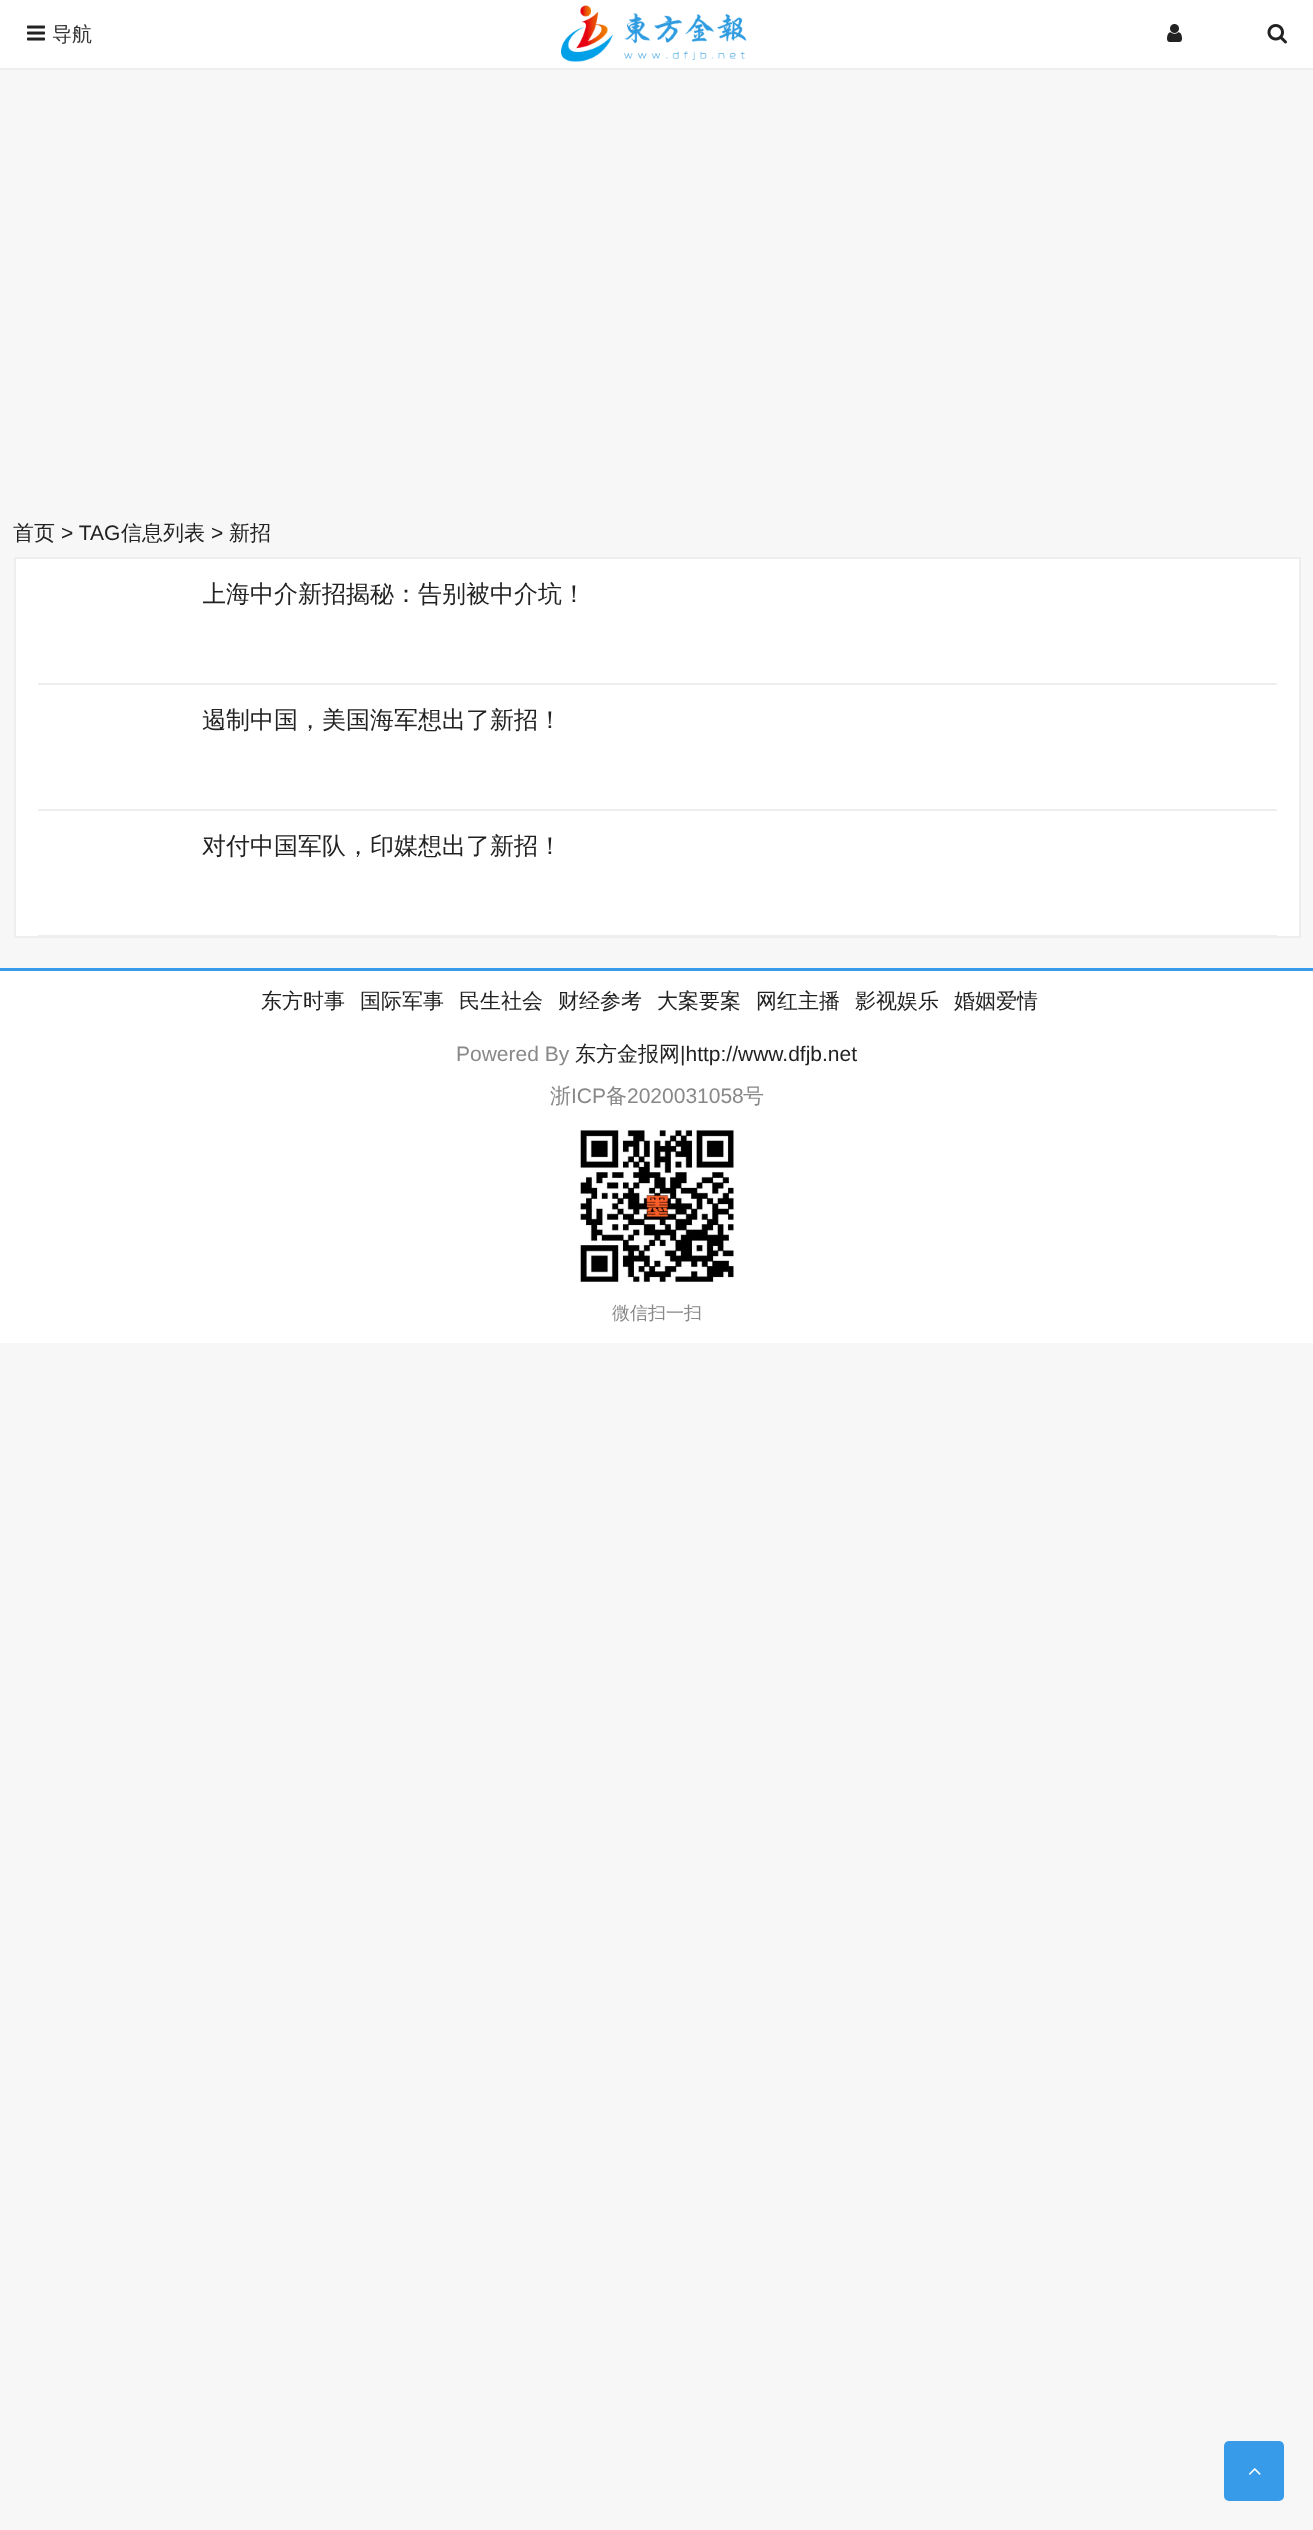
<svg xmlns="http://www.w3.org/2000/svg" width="1313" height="2530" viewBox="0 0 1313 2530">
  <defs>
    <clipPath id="clip1"><rect x="203" y="573" width="1074" height="42"/></clipPath>
  </defs>
  <rect width="100%" height="100%" fill="rgb(247,247,247)"/>
  <rect x="0" y="0" width="1313" height="68" fill="rgb(255,255,255)"/>
  <rect x="0" y="68" width="1313" height="2" fill="rgb(238,238,238)"/>
  <image x="27" y="25" width="18" height="16" href="pic1.png"/>
  <text x="52" y="41" font-family="WenQuanYi Zen Hei" font-size="20" font-weight="500" fill="rgb(51,51,51)">导航</text>
  <image x="561" y="5" width="186" height="57" href="pic2.png"/>
  <image x="1167" y="24" width="15" height="18" href="pic3.png"/>
  <image x="1267" y="24" width="20" height="20" href="pic4.png"/>
  <text x="13" y="540" font-family="WenQuanYi Zen Hei" font-size="21" font-weight="500" fill="rgb(34,34,34)">首页</text>
  <text x="61" y="540" font-family="Liberation Sans" font-size="21" fill="rgb(34,34,34)">&gt; TAG</text>
  <text x="121" y="540" font-family="WenQuanYi Zen Hei" font-size="21" font-weight="500" fill="rgb(34,34,34)">信息列表</text>
  <text x="211" y="540" font-family="Liberation Sans" font-size="21" fill="rgb(34,34,34)">&gt;</text>
  <text x="229" y="540" font-family="WenQuanYi Zen Hei" font-size="21" font-weight="500" fill="rgb(34,34,34)">新招</text>
  <rect x="15" y="558" width="1285" height="379" fill="rgb(255,255,255)" stroke="rgb(238,238,238)" stroke-width="2"/>
  <rect x="38" y="683" width="1239" height="2" fill="rgb(238,238,238)"/>
  <g clip-path="url(#clip1)">
    <text x="202" y="602" font-family="WenQuanYi Zen Hei" font-size="24" font-weight="500" fill="rgb(34,34,34)">上海中介新招揭秘：告别被中介坑！</text>
  </g>
  <rect x="38" y="809" width="1239" height="2" fill="rgb(238,238,238)"/>
  <text x="202" y="728" font-family="WenQuanYi Zen Hei" font-size="24" font-weight="500" fill="rgb(34,34,34)">遏制中国，美国海军想出了新招！</text>
  <rect x="38" y="935" width="1239" height="1" fill="rgb(238,238,238)"/>
  <text x="202" y="854" font-family="WenQuanYi Zen Hei" font-size="24" font-weight="500" fill="rgb(34,34,34)">对付中国军队，印媒想出了新招！</text>
  <rect x="0" y="971" width="1313" height="372" fill="rgb(255,255,255)"/>
  <rect x="0" y="968" width="1313" height="3" fill="rgb(55,155,233)"/>
  <g font-family="WenQuanYi Zen Hei" font-size="21" font-weight="500" fill="rgb(34,34,34)">
    <text x="261" y="1008">东方时事</text>
    <text x="360" y="1008">国际军事</text>
    <text x="459" y="1008">民生社会</text>
    <text x="558" y="1008">财经参考</text>
    <text x="657" y="1008">大案要案</text>
    <text x="756" y="1008">网红主播</text>
    <text x="855" y="1008">影视娱乐</text>
    <text x="954" y="1008">婚姻爱情</text>
  </g>
  <text x="456" y="1061" font-family="Liberation Sans" font-size="21" fill="rgb(136,136,136)">Powered By</text>
  <text x="575" y="1061" font-family="WenQuanYi Zen Hei" font-size="21" font-weight="500" fill="rgb(34,34,34)">东方金报网</text>
  <text x="680" y="1061" font-family="Liberation Sans" font-size="21" fill="rgb(34,34,34)">|http://www.dfjb.net</text>
  <text x="550" y="1103" font-family="WenQuanYi Zen Hei" font-size="21" font-weight="500" fill="rgb(136,136,136)">浙</text>
  <text x="571" y="1103" font-family="Liberation Sans" font-size="21" fill="rgb(136,136,136)">ICP</text>
  <text x="606" y="1103" font-family="WenQuanYi Zen Hei" font-size="21" font-weight="500" fill="rgb(136,136,136)">备</text>
  <text x="627" y="1103" font-family="Liberation Sans" font-size="21" fill="rgb(136,136,136)">2020031058</text>
  <text x="743" y="1103" font-family="WenQuanYi Zen Hei" font-size="21" font-weight="500" fill="rgb(136,136,136)">号</text>
  <image x="580" y="1129" width="154" height="154" href="pic5.png"/>
  <text x="612" y="1319" font-family="WenQuanYi Zen Hei" font-size="18" font-weight="500" fill="rgb(136,136,136)">微信扫一扫</text>
  <rect x="1224" y="2441" width="60" height="60" rx="5" fill="rgb(55,155,233)"/>
  <image x="1249" y="2468" width="12" height="7" href="pic6.png"/>
</svg>
